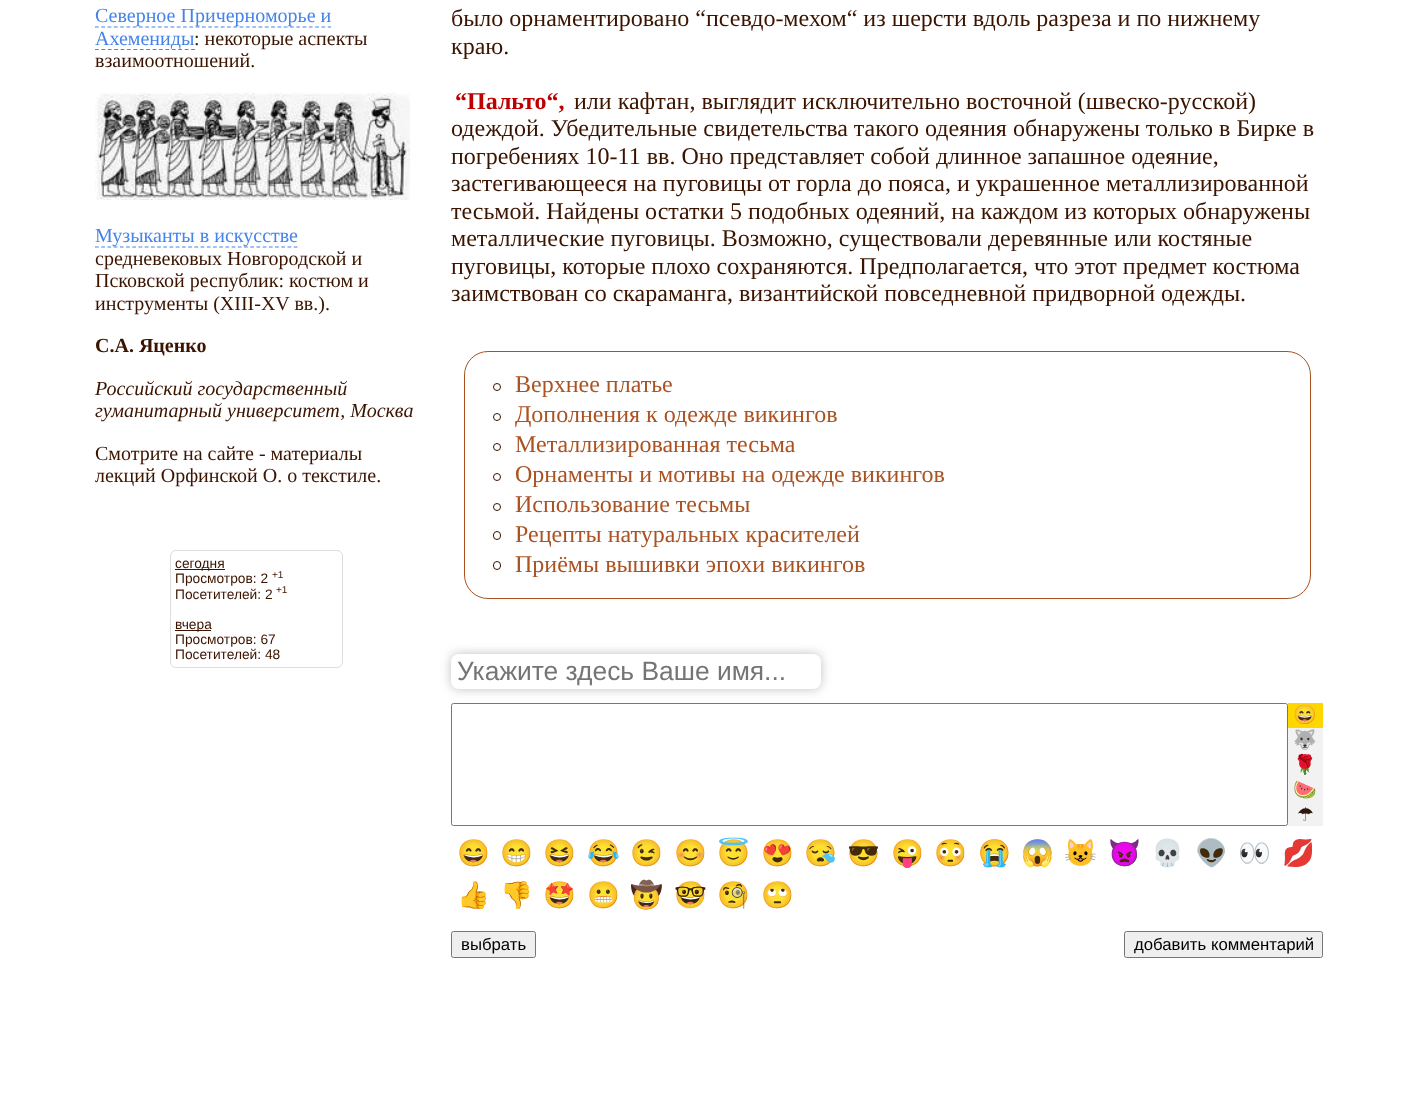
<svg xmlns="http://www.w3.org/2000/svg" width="1419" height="1098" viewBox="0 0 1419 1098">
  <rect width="100%" height="100%" fill="rgb(255,255,255)"/>
  <path d="M95 27H331" fill="none" stroke="rgb(68,131,233)" stroke-width="1.2" stroke-dasharray="3.75 2.54"/>
  <text x="95" y="22" font-family="Liberation Serif" font-size="20" fill="rgb(68,131,233)">Северное Причерноморье и</text>
  <path d="M95 49.5H195" fill="none" stroke="rgb(68,131,233)" stroke-width="1.2" stroke-dasharray="3.75 2.66"/>
  <text x="95" y="45" font-family="Liberation Serif" font-size="20" fill="rgb(68,131,233)">Ахемениды</text>
  <g font-family="Liberation Serif" font-size="20" fill="rgb(59,20,0)">
    <text x="194" y="45">: некоторые аспекты</text>
    <text x="95" y="67">взаимоотношений.</text>
  </g>
  <image x="95" y="92" width="315" height="108" href="pic1.png"/>
  <path d="M95 247H297.5" fill="none" stroke="rgb(68,131,233)" stroke-width="1.2" stroke-dasharray="3.75 2.46"/>
  <text x="95" y="242" font-family="Liberation Serif" font-size="20" fill="rgb(68,131,233)">Музыканты в искусстве</text>
  <g font-family="Liberation Serif" font-size="20" fill="rgb(59,20,0)">
    <text>
      <tspan x="95" y="265">средневековых Новгородской и</tspan>
      <tspan x="95" y="287">Псковской республик: костюм и</tspan>
      <tspan x="95" y="310">инструменты (XIII-XV вв.).</tspan>
    </text>
  </g>
  <text x="95" y="352" font-family="Liberation Serif" font-size="20" font-weight="bold" fill="rgb(59,20,0)">С.А. Яценко</text>
  <g font-family="Liberation Serif" font-size="20" font-style="italic" fill="rgb(59,20,0)">
    <text>
      <tspan x="95" y="395">Российский государственный</tspan>
      <tspan x="95" y="417">гуманитарный университет, Москва</tspan>
    </text>
  </g>
  <g font-family="Liberation Serif" font-size="20" fill="rgb(59,20,0)">
    <text>
      <tspan x="95" y="460">Смотрите на сайте - материалы</tspan>
      <tspan x="95" y="482">лекций Орфинской О. о текстиле.</tspan>
    </text>
  </g>
  <rect x="170.5" y="550.5" width="172" height="117" rx="5.5" fill="none" stroke="rgb(221,221,221)"/>
  <rect x="175" y="569" width="50" height="1" fill="rgb(59,20,0)"/>
  <g font-family="Liberation Sans" font-size="13.75" fill="rgb(59,20,0)">
    <text>
      <tspan x="175" y="568">сегодня</tspan>
      <tspan x="175" y="583">Просмотров: 2</tspan>
    </text>
  </g>
  <text x="272" y="578" font-family="Liberation Sans" font-size="10" fill="rgb(59,20,0)">+1</text>
  <text x="175" y="599" font-family="Liberation Sans" font-size="13.75" fill="rgb(59,20,0)">Посетителей: 2</text>
  <text x="276" y="593" font-family="Liberation Sans" font-size="10" fill="rgb(59,20,0)">+1</text>
  <rect x="175" y="630" width="36" height="1" fill="rgb(59,20,0)"/>
  <g font-family="Liberation Sans" font-size="13.75" fill="rgb(59,20,0)">
    <text>
      <tspan x="175" y="629">вчера</tspan>
      <tspan x="175" y="644">Просмотров: 67</tspan>
      <tspan x="175" y="659">Посетителей: 48</tspan>
    </text>
  </g>
  <g font-family="Liberation Serif" font-size="24" fill="rgb(59,20,0)">
    <text>
      <tspan x="451" y="26">было орнаментировано “псевдо-мехом“ из шерсти вдоль разреза и по нижнему</tspan>
      <tspan x="451" y="54">краю.</tspan>
    </text>
  </g>
  <text x="455" y="109" font-family="Liberation Serif" font-size="24" font-weight="bold" fill="rgb(191,0,0)">“Пальто“,</text>
  <g font-family="Liberation Serif" font-size="24" fill="rgb(59,20,0)">
    <text x="574" y="109">или кафтан, выглядит исключительно восточной (швеско-русской)</text>
    <text>
      <tspan x="451" y="136">одеждой. Убедительные свидетельства такого одеяния обнаружены только в Бирке в</tspan>
      <tspan x="451" y="164">погребениях 10-11 вв. Оно представляет собой длинное запашное одеяние,</tspan>
      <tspan x="451" y="191">застегивающееся на пуговицы от горла до пояса, и украшенное металлизированной</tspan>
      <tspan x="451" y="219">тесьмой. Найдены остатки 5 подобных одеяний, на каждом из которых обнаружены</tspan>
      <tspan x="451" y="246">металлические пуговицы. Возможно, существовали деревянные или костяные</tspan>
      <tspan x="451" y="274">пуговицы, которые плохо сохраняются. Предполагается, что этот предмет костюма</tspan>
      <tspan x="451" y="301">заимствован со скараманга, византийской повседневной придворной одежды.</tspan>
    </text>
  </g>
  <rect x="464.5" y="351.5" width="846" height="247" rx="23.5" fill="none" stroke="rgb(170,82,34)"/>
  <circle cx="497" cy="387" r="3.5" fill="none" stroke="rgb(59,20,0)"/>
  <text x="515" y="392" font-family="Liberation Serif" font-size="24" fill="rgb(170,82,34)">Верхнее платье</text>
  <circle cx="497" cy="417" r="3.5" fill="none" stroke="rgb(59,20,0)"/>
  <text x="515" y="422" font-family="Liberation Serif" font-size="24" fill="rgb(170,82,34)">Дополнения к одежде викингов</text>
  <circle cx="497" cy="447" r="3.5" fill="none" stroke="rgb(59,20,0)"/>
  <text x="515" y="452" font-family="Liberation Serif" font-size="24" fill="rgb(170,82,34)">Металлизированная тесьма</text>
  <circle cx="497" cy="477" r="3.5" fill="none" stroke="rgb(59,20,0)"/>
  <text x="515" y="482" font-family="Liberation Serif" font-size="24" fill="rgb(170,82,34)">Орнаменты и мотивы на одежде викингов</text>
  <circle cx="497" cy="507" r="3.5" fill="none" stroke="rgb(59,20,0)"/>
  <text x="515" y="512" font-family="Liberation Serif" font-size="24" fill="rgb(170,82,34)">Использование тесьмы</text>
  <rect x="493.5" y="531.5" width="7" height="8" rx="3.5" fill="none" stroke="rgb(59,20,0)"/>
  <text x="515" y="542" font-family="Liberation Serif" font-size="24" fill="rgb(170,82,34)">Рецепты натуральных красителей</text>
  <rect x="493.5" y="561.5" width="7" height="8" rx="3.5" fill="none" stroke="rgb(59,20,0)"/>
  <text x="515" y="572" font-family="Liberation Serif" font-size="24" fill="rgb(170,82,34)">Приёмы вышивки эпохи викингов</text>
  <rect x="451" y="654" width="370" height="35" rx="8" fill="rgb(192,192,192)" filter="blur(5.5px)"/>
  <rect x="451" y="654" width="370" height="35" rx="8" fill="rgb(255,255,255)"/>
  <text x="457" y="680" font-family="Liberation Sans" font-size="26.4" fill="rgb(117,117,117)">Укажите здесь Ваше имя...</text>
  <rect x="451.5" y="703.5" width="836" height="122" rx="2" fill="none" stroke="rgb(118,118,118)"/>
  <rect x="1288" y="703" width="35" height="25" fill="rgb(255,215,0)"/>
  <text x="1293" y="721" font-family="Noto Color Emoji" font-size="19" fill="rgb(59,20,0)">😄</text>
  <rect x="1288" y="728" width="35" height="98" fill="rgb(242,242,242)"/>
  <g font-family="Noto Color Emoji" font-size="19" fill="rgb(43,23,13)">
    <text>
      <tspan x="1293" y="746">🐺</tspan>
      <tspan x="1293" y="771">🌹</tspan>
      <tspan x="1293" y="796">🍉</tspan>
    </text>
  </g>
  <text x="1297" y="821" font-family="DejaVu Sans" font-size="19" fill="rgb(43,23,13)">☂</text>
  <g font-family="Noto Color Emoji" font-size="26.4" fill="rgb(59,20,0)">
    <text x="457" y="862">😄</text>
    <text x="500" y="862">😁</text>
    <text x="543" y="862">😆</text>
    <text x="587" y="862">😂</text>
    <text x="630" y="862">😉</text>
    <text x="674" y="862">😊</text>
    <text x="717" y="862">😇</text>
    <text x="761" y="862">😍</text>
    <text x="804" y="862">😪</text>
    <text x="847" y="862">😎</text>
    <text x="891" y="862">😜</text>
    <text x="934" y="862">😳</text>
    <text x="978" y="862">😭</text>
    <text x="1021" y="862">😱</text>
    <text x="1064" y="862">😺</text>
    <text x="1108" y="862">👿</text>
    <text x="1151" y="862">💀</text>
    <text x="1195" y="862">👽</text>
    <text x="1238" y="862">👀</text>
    <text x="1282" y="862">💋</text>
    <text x="457" y="904">👍</text>
    <text x="500" y="904">👎</text>
    <text x="543" y="904">🤩</text>
    <text x="587" y="904">😬</text>
    <text x="630" y="904">🤠</text>
    <text x="674" y="904">🤓</text>
    <text x="717" y="904">🧐</text>
    <text x="761" y="904">🙄</text>
  </g>
  <rect x="451.5" y="931.5" width="84" height="26" rx="2" fill="rgb(239,239,239)" stroke="rgb(118,118,118)"/>
  <text x="461" y="950" font-family="Liberation Sans" font-size="16.75" fill="rgb(0,0,0)">выбрать</text>
  <rect x="1124.5" y="931.5" width="198" height="26" rx="2" fill="rgb(239,239,239)" stroke="rgb(118,118,118)"/>
  <text x="1134" y="950" font-family="Liberation Sans" font-size="16.75" fill="rgb(0,0,0)">добавить комментарий</text>
</svg>
